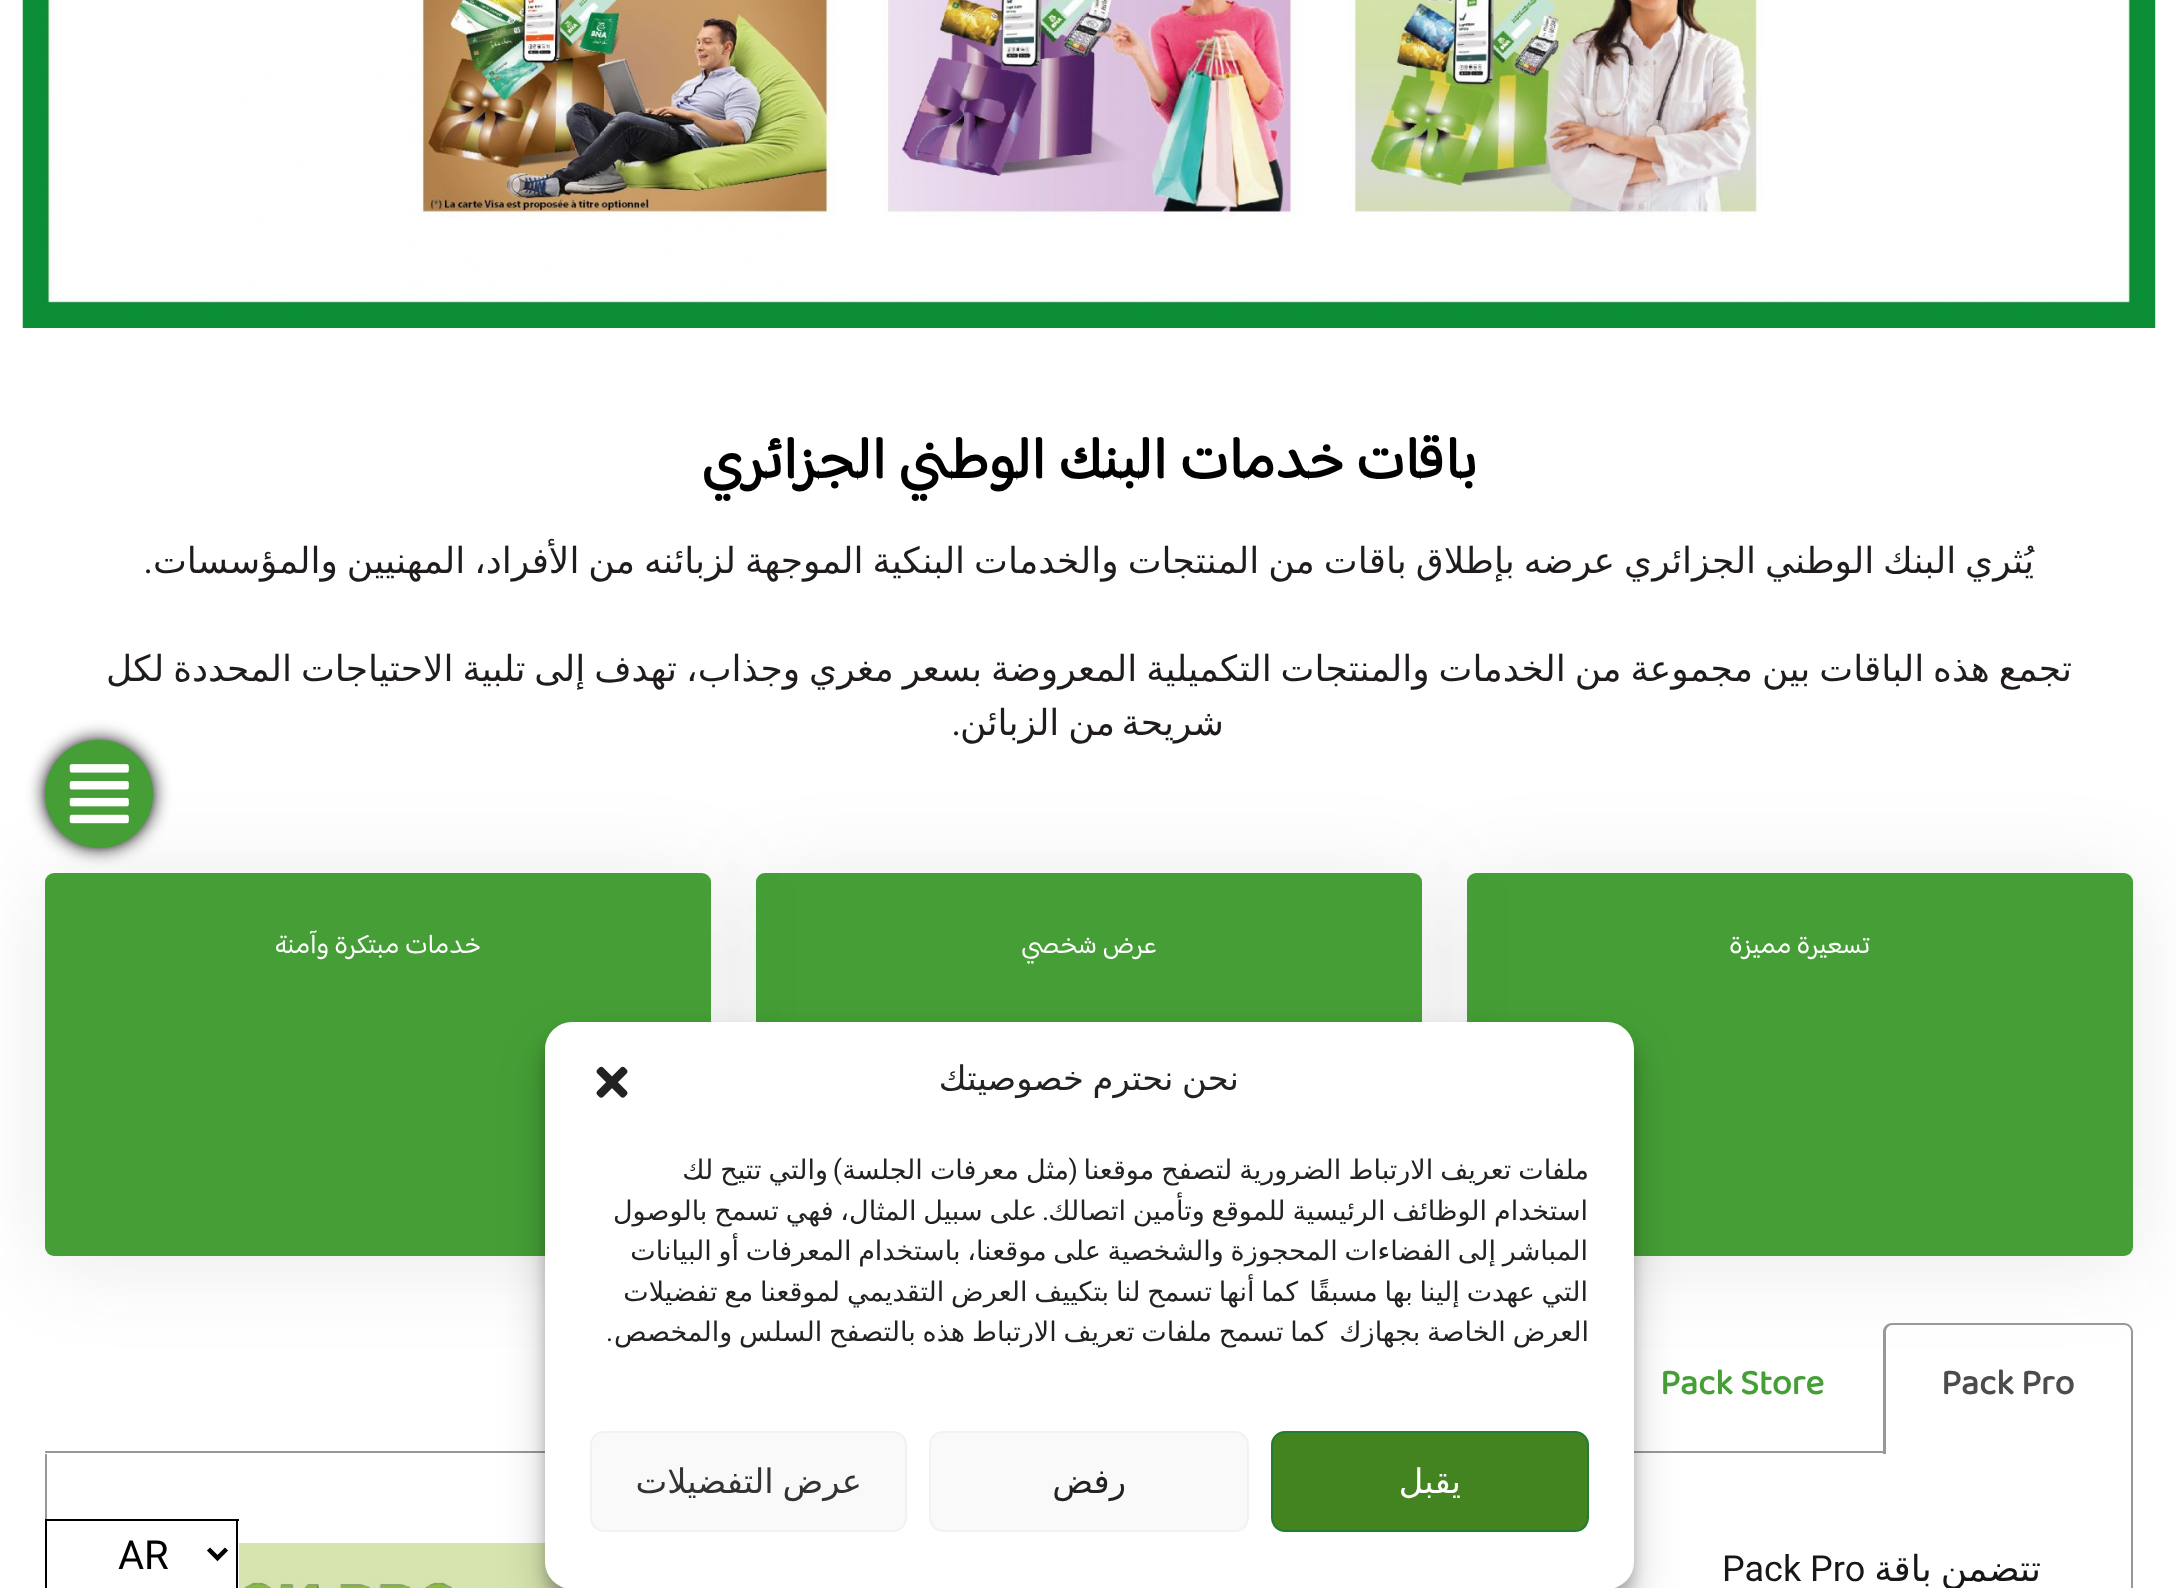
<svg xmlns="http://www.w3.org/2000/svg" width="2176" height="1588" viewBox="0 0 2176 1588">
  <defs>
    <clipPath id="clip1"><rect x="590" y="1150" width="999" height="214"/></clipPath>
  </defs>
  <rect width="100%" height="100%" fill="rgb(255,255,255)"/>
  <image x="22" y="0" width="2134" height="328" href="pic1.png"/>
  <text x="1477" y="478" font-family="'Baloo Bhaijaan 2'" font-size="58.5" font-weight="bold" direction="rtl" fill="rgb(0,0,0)">باقات خدمات البنك الوطني الجزائري</text>
  <text x="2034" y="573" word-spacing="-2.5" font-family="DejaVu Sans" font-size="36" direction="rtl" fill="rgb(32,28,28)">يُثري البنك الوطني الجزائري عرضه بإطلاق باقات من المنتجات والخدمات البنكية الموجهة لزبائنه من الأفراد، المهنيين والمؤسسات</text>
  <text x="153" y="573" font-family="Roboto" font-size="36" direction="rtl" fill="rgb(32,28,28)">.</text>
  <g font-family="DejaVu Sans" font-size="36" direction="rtl" fill="rgb(32,28,28)">
    <text x="2072" y="681" word-spacing="-2.5">تجمع هذه الباقات بين مجموعة من الخدمات والمنتجات التكميلية المعروضة بسعر مغري وجذاب، تهدف إلى تلبية الاحتياجات المحددة لكل</text>
    <text x="1224" y="735">شريحة</text>
    <text x="1115" y="735" word-spacing="-2.5">من الزبائن</text>
  </g>
  <text x="961" y="735" font-family="Roboto" font-size="36" direction="rtl" fill="rgb(32,28,28)">.</text>
  <rect x="1467" y="880" width="666" height="382" rx="9" fill="rgba(36,36,36,0.1)" filter="blur(45px)"/>
  <rect x="1467" y="873" width="666" height="383" rx="9" fill="rgb(69,159,54)"/>
  <text x="1870" y="953" font-family="'Baloo Bhaijaan 2'" font-size="27" direction="rtl" fill="rgb(255,255,255)">تسعيرة مميزة</text>
  <rect x="756" y="880" width="666" height="382" rx="9" fill="rgba(36,36,36,0.1)" filter="blur(45px)"/>
  <rect x="756" y="873" width="666" height="383" rx="9" fill="rgb(69,159,54)"/>
  <text x="1157" y="953" font-family="'Baloo Bhaijaan 2'" font-size="27" direction="rtl" fill="rgb(255,255,255)">عرض شخصي</text>
  <rect x="45" y="880" width="666" height="382" rx="9" fill="rgba(36,36,36,0.1)" filter="blur(45px)"/>
  <rect x="45" y="873" width="666" height="383" rx="9" fill="rgb(69,159,54)"/>
  <text x="481" y="953" font-family="'Baloo Bhaijaan 2'" font-size="27" direction="rtl" fill="rgb(255,255,255)">خدمات مبتكرة وآمنة</text>
  <path d="M1892 1323H2124C2129 1323 2133 1327 2133 1332V1454H1883V1332C1883 1327 1887 1323 1892 1323ZM1892 1325H2124C2128 1325 2131 1328 2131 1332V1454H1886V1332C1886 1328 1889 1325 1892 1325Z" fill="rgb(153,151,151)" fill-rule="evenodd"/>
  <text x="1941" y="1394" font-family="'Baloo Bhaijaan 2'" font-size="36" font-weight="bold" fill="rgb(76,76,76)">Pack Pro</text>
  <rect x="45" y="1451" width="1841" height="2" fill="rgb(153,151,151)"/>
  <text x="1660" y="1394" font-family="'Baloo Bhaijaan 2'" font-size="36" font-weight="bold" fill="rgb(69,159,54)">Pack Store</text>
  <rect x="2131" y="1454" width="2" height="134" fill="rgb(153,151,151)"/>
  <rect x="45" y="1454" width="2" height="65" fill="rgb(153,151,151)"/>
  <text x="2041" y="1581" word-spacing="-2.5" font-family="DejaVu Sans" font-size="36" direction="rtl" fill="rgb(24,22,22)">تتضمن باقة</text>
  <text x="1722" y="1581" font-family="Roboto" font-size="36" fill="rgb(24,22,22)">Pack Pro</text>
  <image x="239" y="1543" width="326" height="45" href="pic2.png"/>
  <rect x="45" y="740" width="108" height="108" rx="54" fill="rgba(0,0,0,0.5)" filter="blur(9px)"/>
  <rect x="56" y="752" width="86" height="85" rx="42.5" fill="rgba(0,0,0,0.5)" filter="blur(7px)"/>
  <rect x="56" y="752" width="86" height="85" rx="42.5" fill="rgba(0,0,0,0.5)" filter="blur(7px)"/>
  <rect x="56" y="752" width="86" height="85" rx="42.5" fill="rgba(0,0,0,0.5)" filter="blur(7px)"/>
  <rect x="56" y="752" width="86" height="85" rx="42.5" fill="rgba(0,0,0,0.5)" filter="blur(7px)"/>
  <rect x="45" y="740" width="108" height="108" rx="54" fill="rgba(0,0,0,0.5)" filter="blur(9px)"/>
  <rect x="56" y="752" width="86" height="85" rx="42.5" fill="rgba(0,0,0,0.5)" filter="blur(7px)"/>
  <rect x="56" y="752" width="86" height="85" rx="42.5" fill="rgba(0,0,0,0.5)" filter="blur(7px)"/>
  <circle cx="99" cy="794" r="54" fill="rgb(69,159,54)"/>
  <image x="69" y="764" width="60" height="60" href="pic3.png"/>
  <rect x="45" y="1519" width="194" height="2" fill="rgb(0,0,0)"/>
  <rect x="236" y="1519" width="2" height="69" fill="rgb(0,0,0)"/>
  <rect x="45" y="1519" width="2" height="69" fill="rgb(0,0,0)"/>
  <path d="M208.5 1549L217.5 1558L226.5 1549" fill="none" stroke="rgb(0,0,0)" stroke-width="4.5"/>
  <text x="118" y="1569" font-family="Roboto" font-size="40" fill="rgb(0,0,0)">AR</text>
  <rect x="545" y="1035" width="1089" height="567" rx="27" fill="rgba(0,0,0,0.23)" filter="blur(7px)"/>
  <rect x="545" y="1044" width="1089" height="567" rx="27" fill="rgba(0,0,0,0.19)" filter="blur(22.5px)"/>
  <rect x="545" y="1022" width="1089" height="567" rx="27" fill="rgb(255,255,255)"/>
  <text x="1239" y="1090" word-spacing="-2" font-family="DejaVu Sans" font-size="33.75" direction="rtl" fill="rgb(34,34,34)">نحن نحترم خصوصيتك</text>
  <image x="596" y="1066" width="32" height="32" href="pic4.png"/>
  <g clip-path="url(#clip1)">
    <text x="1589" y="1179" word-spacing="-1.5" font-family="DejaVu Sans" font-size="27" direction="rtl" fill="rgb(34,34,34)">ملفات تعريف الارتباط الضرورية لتصفح موقعنا</text>
  </g>
  <text x="1078" y="1179" font-family="Roboto" font-size="27" direction="rtl" fill="rgb(34,34,34)">(</text>
  <text x="1069" y="1179" word-spacing="-1.5" font-family="DejaVu Sans" font-size="27" direction="rtl" fill="rgb(34,34,34)">مثل معرفات الجلسة</text>
  <text x="842" y="1179" font-family="Roboto" font-size="27" direction="rtl" fill="rgb(34,34,34)">)</text>
  <text x="828" y="1179" word-spacing="-1.5" font-family="DejaVu Sans" font-size="27" direction="rtl" fill="rgb(34,34,34)">والتي تتيح لك</text>
  <g clip-path="url(#clip1)">
    <text x="1588" y="1220" word-spacing="-1.75" font-family="DejaVu Sans" font-size="27" direction="rtl" fill="rgb(34,34,34)">استخدام الوظائف الرئيسية للموقع وتأمين اتصالك</text>
  </g>
  <text x="1049" y="1220" font-family="Roboto" font-size="27" direction="rtl" fill="rgb(34,34,34)">.</text>
  <text x="1037" y="1220" word-spacing="-1.75" font-family="DejaVu Sans" font-size="27" direction="rtl" fill="rgb(34,34,34)">على سبيل المثال، فهي تسمح بالوصول</text>
  <g clip-path="url(#clip1)">
    <g font-family="DejaVu Sans" font-size="27" direction="rtl" fill="rgb(34,34,34)">
      <text>
        <tspan x="1588" y="1260" word-spacing="-1.9">المباشر إلى الفضاءات المحجوزة والشخصية على موقعنا، باستخدام المعرفات أو البيانات</tspan>
        <tspan x="1588" y="1301" word-spacing="-1.75">التي عهدت إلينا بها مسبقًا</tspan>
      </text>
    </g>
  </g>
  <text x="1298" y="1301" word-spacing="-1.75" font-family="DejaVu Sans" font-size="27" direction="rtl" fill="rgb(34,34,34)">كما أنها تسمح لنا بتكييف العرض التقديمي لموقعنا مع تفضيلات</text>
  <g clip-path="url(#clip1)">
    <text x="1589" y="1341" word-spacing="-1.75" font-family="DejaVu Sans" font-size="27" direction="rtl" fill="rgb(34,34,34)">العرض الخاصة بجهازك</text>
  </g>
  <text x="1327" y="1341" word-spacing="-1.75" font-family="DejaVu Sans" font-size="27" direction="rtl" fill="rgb(34,34,34)">كما تسمح ملفات تعريف الارتباط هذه بالتصفح السلس والمخصص</text>
  <text x="613" y="1341" font-family="Roboto" font-size="27" direction="rtl" fill="rgb(34,34,34)">.</text>
  <rect x="1272" y="1432" width="316" height="99" rx="13" fill="rgb(67,131,32)" stroke="rgb(36,123,51)" stroke-width="2"/>
  <text x="1461" y="1493" font-family="DejaVu Sans" font-size="33.75" direction="rtl" fill="rgb(255,255,255)">يقبل</text>
  <rect x="930" y="1432" width="318" height="99" rx="13" fill="rgb(249,249,249)" stroke="rgb(242,242,242)" stroke-width="2"/>
  <text x="1126" y="1493" font-family="DejaVu Sans" font-size="33.75" direction="rtl" fill="rgb(34,34,34)">رفض</text>
  <rect x="591" y="1432" width="315" height="99" rx="13" fill="rgb(249,249,249)" stroke="rgb(242,242,242)" stroke-width="2"/>
  <text x="862" y="1493" word-spacing="-2" font-family="DejaVu Sans" font-size="33.75" direction="rtl" fill="rgb(51,51,51)">عرض التفضيلات</text>
</svg>
